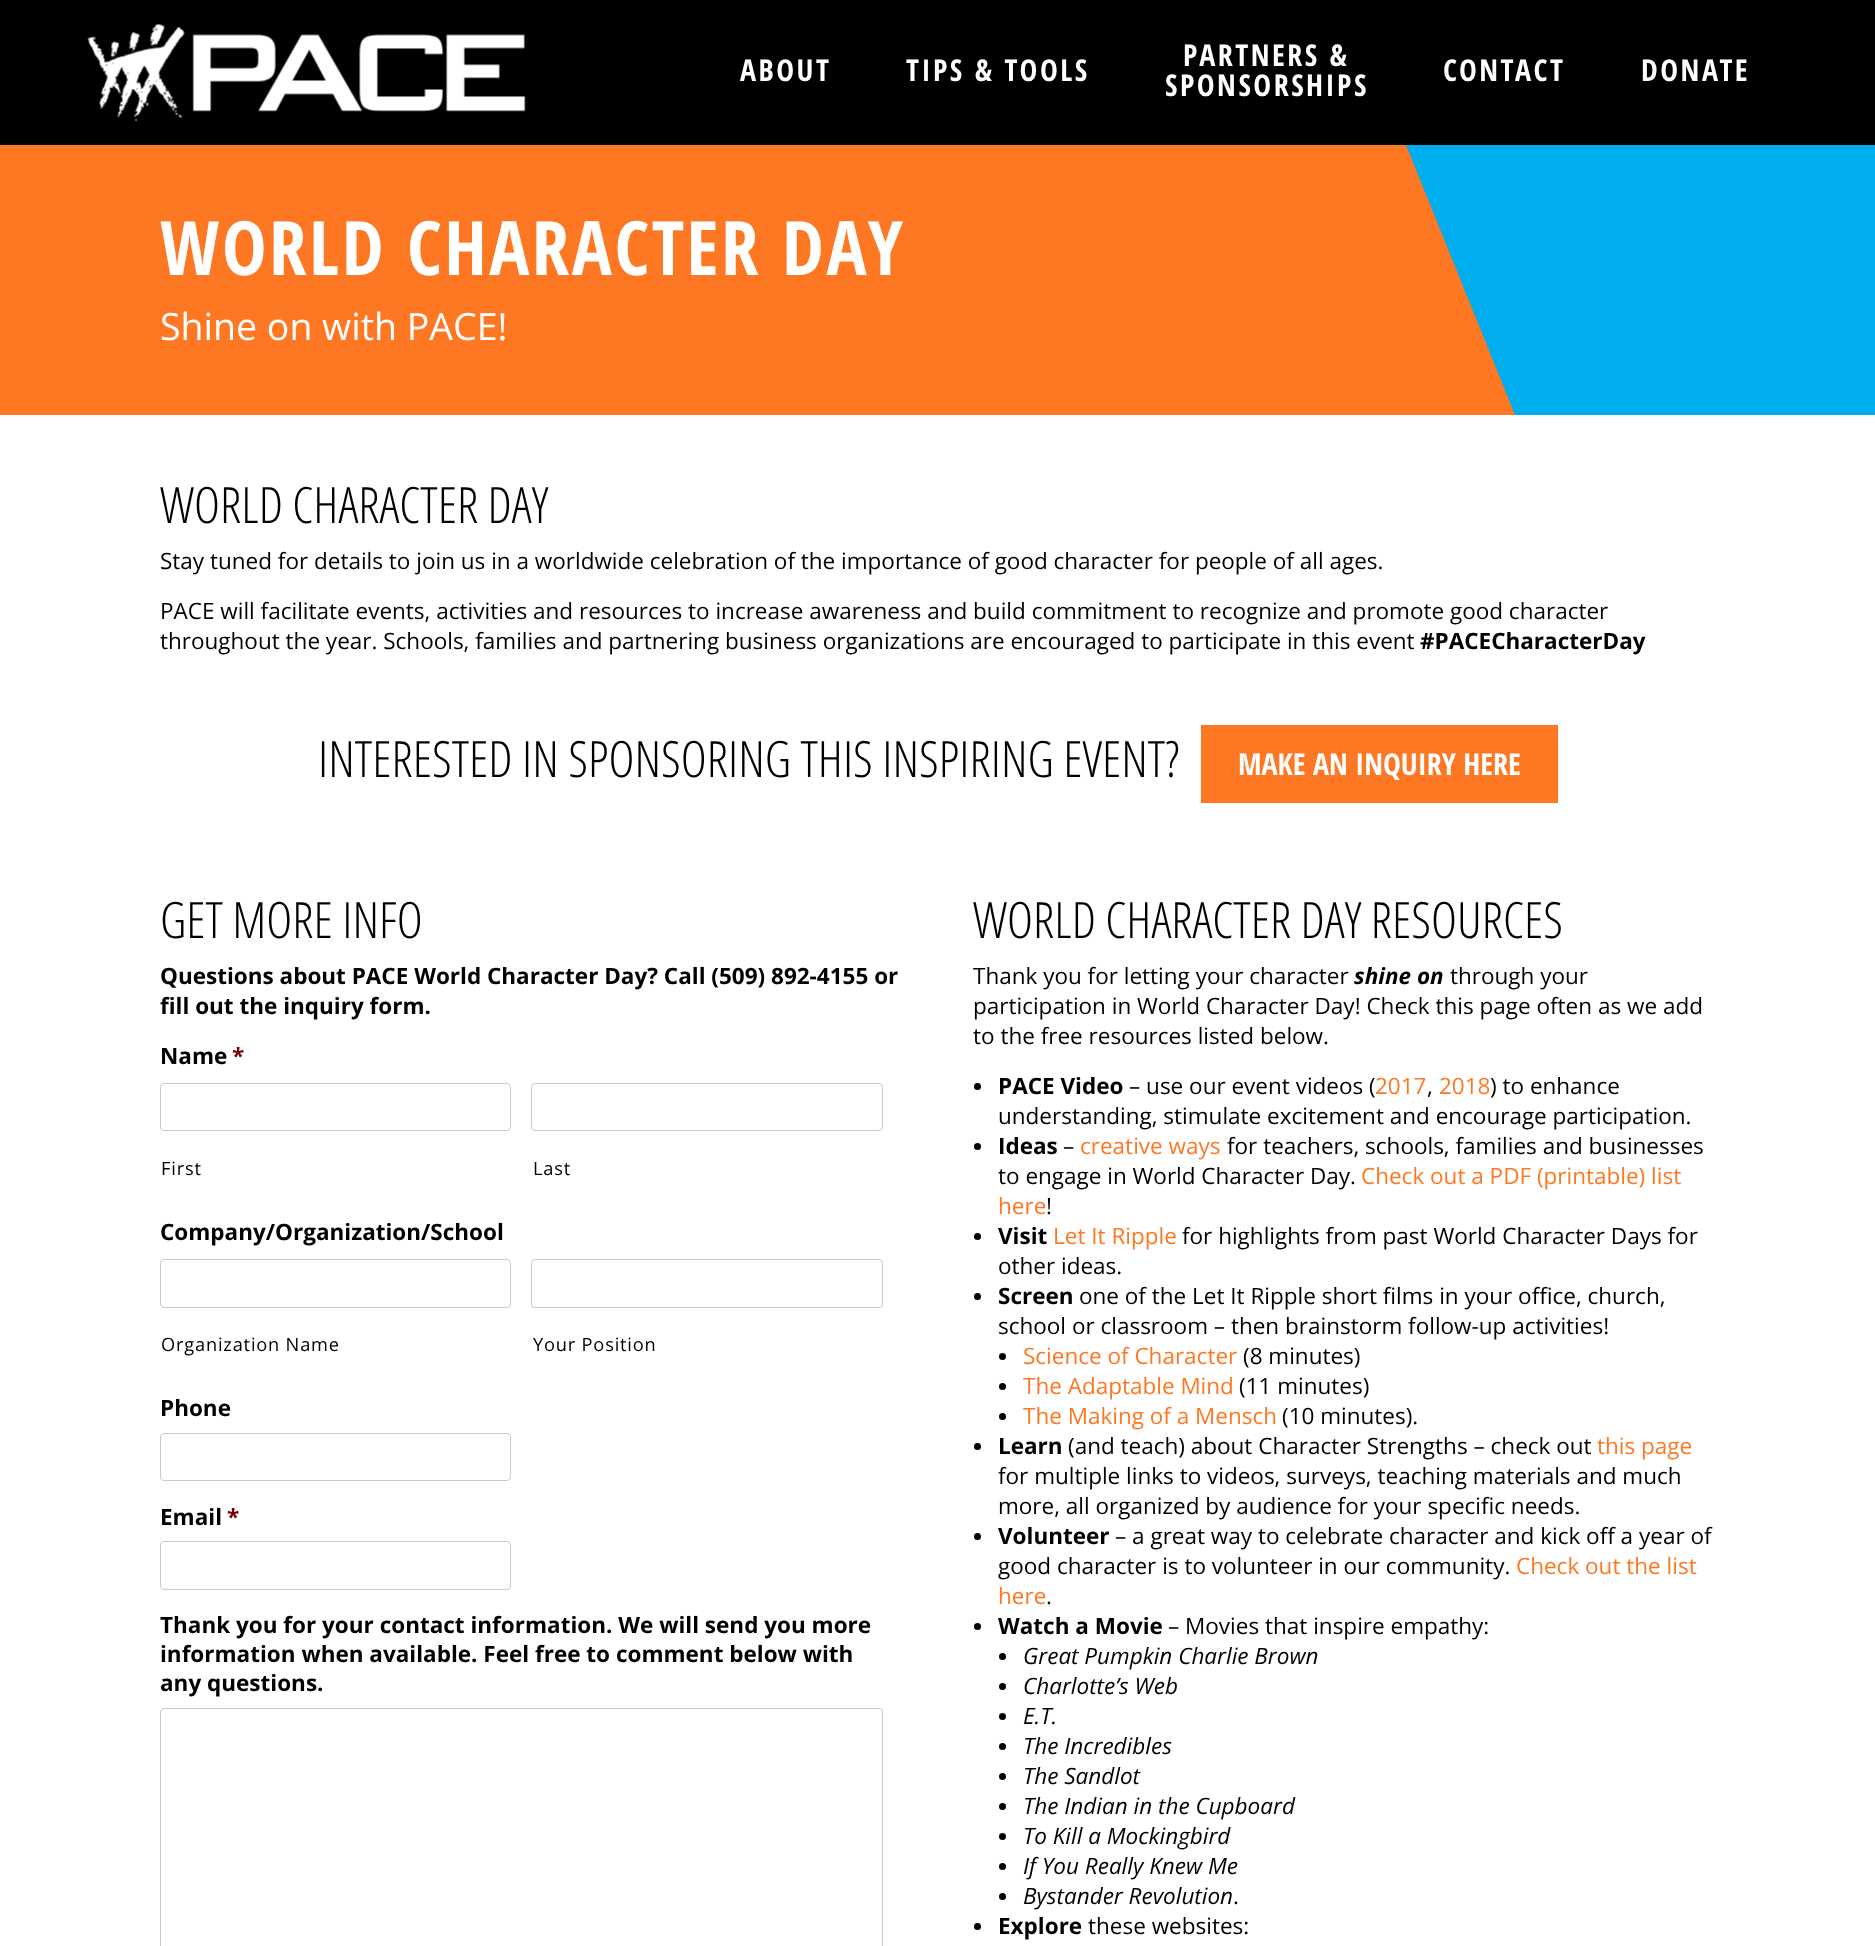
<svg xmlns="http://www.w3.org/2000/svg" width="1875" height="1946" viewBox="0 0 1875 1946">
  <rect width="100%" height="100%" fill="rgb(255,255,255)"/>
  <rect x="0" y="0" width="1875" height="145" fill="rgb(0,0,0)"/>
  <image x="87" y="24" width="439" height="98" href="pic1.png"/>
  <g font-family="Open Sans Condensed" font-size="30" font-weight="bold" letter-spacing="2.5" fill="rgb(255,255,255)">
    <text x="740" y="81">ABOUT</text>
    <text x="906" y="81">TIPS &amp; TOOLS</text>
    <text x="1183" y="66">PARTNERS &amp;</text>
    <text x="1165" y="96">SPONSORSHIPS</text>
    <text x="1443" y="81">CONTACT</text>
    <text x="1641" y="81">DONATE</text>
  </g>
  <rect x="1406" y="145" width="469" height="270" fill="rgb(0,174,239)"/>
  <rect x="0" y="145" width="672" height="270" fill="rgb(254,120,35)"/>
  <path d="M563 145H1406L1515 415H672Z" fill="rgb(254,120,35)"/>
  <text x="160" y="275" font-family="Open Sans Condensed" font-size="75" font-weight="bold" letter-spacing="2.5" fill="rgb(255,255,255)">WORLD CHARACTER DAY</text>
  <text x="160" y="340" font-family="Open Sans" font-size="37.5" fill="rgb(255,255,255)">Shine on with PACE!</text>
  <text x="160" y="523" font-family="Open Sans Condensed" font-size="50" font-weight="300" fill="rgb(0,0,0)">WORLD CHARACTER DAY</text>
  <g font-family="Open Sans" font-size="22.5" fill="rgb(0,0,0)">
    <text x="160" y="569">Stay tuned for details to join us in a worldwide celebration of the importance of good character for people of all ages.</text>
    <text>
      <tspan x="160" y="619">PACE will facilitate events, activities and resources to increase awareness and build commitment to recognize and promote good character</tspan>
      <tspan x="160" y="649">throughout the year. Schools, families and partnering business organizations are encouraged to participate in this event</tspan>
    </text>
  </g>
  <text x="1420" y="649" font-family="Open Sans" font-size="22.5" font-weight="bold" fill="rgb(0,0,0)">#PACECharacterDay</text>
  <text x="318" y="777" font-family="Open Sans Condensed" font-size="50" font-weight="300" fill="rgb(0,0,0)">INTERESTED IN SPONSORING THIS INSPIRING EVENT?</text>
  <rect x="1201" y="725" width="357" height="78" fill="rgb(254,120,35)"/>
  <text x="1238" y="775" font-family="Open Sans Condensed" font-size="30" font-weight="bold" fill="rgb(255,255,255)">MAKE AN INQUIRY HERE</text>
  <text x="160" y="938" font-family="Open Sans Condensed" font-size="50" font-weight="300" fill="rgb(0,0,0)">GET MORE INFO</text>
  <g font-family="Open Sans" font-size="22.5" font-weight="bold" fill="rgb(0,0,0)">
    <text>
      <tspan x="160" y="984">Questions about PACE World Character Day? Call (509) 892-4155 or</tspan>
      <tspan x="160" y="1014">fill out the inquiry form.</tspan>
    </text>
    <text x="160" y="1064">Name</text>
  </g>
  <text x="232" y="1064" font-family="Open Sans" font-size="22.5" font-weight="bold" fill="rgb(121,0,0)">*</text>
  <rect x="160.5" y="1083.5" width="350" height="47" rx="3.5" fill="none" stroke="rgb(202,202,202)"/>
  <text x="161" y="1175" font-family="Open Sans" font-size="18.25" letter-spacing="0.8" fill="rgb(0,0,0)">First</text>
  <rect x="531.5" y="1083.5" width="351" height="47" rx="3.5" fill="none" stroke="rgb(202,202,202)"/>
  <text x="533" y="1175" font-family="Open Sans" font-size="18.25" letter-spacing="0.8" fill="rgb(0,0,0)">Last</text>
  <text x="160" y="1240" font-family="Open Sans" font-size="22.5" font-weight="bold" fill="rgb(0,0,0)">Company/Organization/School</text>
  <rect x="160.5" y="1259.5" width="350" height="48" rx="3.5" fill="none" stroke="rgb(202,202,202)"/>
  <text x="161" y="1351" font-family="Open Sans" font-size="18.25" letter-spacing="0.8" fill="rgb(0,0,0)">Organization Name</text>
  <rect x="531.5" y="1259.5" width="351" height="48" rx="3.5" fill="none" stroke="rgb(202,202,202)"/>
  <text x="533" y="1351" font-family="Open Sans" font-size="18.25" letter-spacing="0.8" fill="rgb(0,0,0)">Your Position</text>
  <text x="160" y="1416" font-family="Open Sans" font-size="22.5" font-weight="bold" fill="rgb(0,0,0)">Phone</text>
  <rect x="160.5" y="1433.5" width="350" height="47" rx="3.5" fill="none" stroke="rgb(202,202,202)"/>
  <text x="160" y="1525" font-family="Open Sans" font-size="22.5" font-weight="bold" fill="rgb(0,0,0)">Email</text>
  <text x="227" y="1525" font-family="Open Sans" font-size="22.5" font-weight="bold" fill="rgb(121,0,0)">*</text>
  <rect x="160.5" y="1541.5" width="350" height="48" rx="3.5" fill="none" stroke="rgb(202,202,202)"/>
  <g font-family="Open Sans" font-size="22.5" font-weight="bold" fill="rgb(0,0,0)">
    <text>
      <tspan x="160" y="1633">Thank you for your contact information. We will send you more</tspan>
      <tspan x="160" y="1662">information when available. Feel free to comment below with</tspan>
      <tspan x="160" y="1691">any questions.</tspan>
    </text>
  </g>
  <rect x="160.5" y="1708.5" width="722" height="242" rx="3.5" fill="none" stroke="rgb(202,202,202)"/>
  <text x="973" y="938" font-family="Open Sans Condensed" font-size="50" font-weight="300" fill="rgb(0,0,0)">WORLD CHARACTER DAY RESOURCES</text>
  <text x="973" y="984" font-family="Open Sans" font-size="22.5" fill="rgb(0,0,0)">Thank you for letting your character</text>
  <text x="1354" y="984" font-family="Open Sans" font-size="22.5" font-weight="bold" font-style="italic" fill="rgb(0,0,0)">shine on</text>
  <g font-family="Open Sans" font-size="22.5" fill="rgb(0,0,0)">
    <text x="1450" y="984">through your</text>
    <text>
      <tspan x="973" y="1014">participation in World Character Day! Check this page often as we add</tspan>
      <tspan x="973" y="1044">to the free resources listed below.</tspan>
    </text>
  </g>
  <circle cx="977.5" cy="1086.5" r="3.5" fill="rgb(0,0,0)"/>
  <text x="998" y="1094" font-family="Open Sans" font-size="22.5" font-weight="bold" fill="rgb(0,0,0)">PACE Video</text>
  <text x="1129" y="1094" font-family="Open Sans" font-size="22.5" fill="rgb(0,0,0)">– use our event videos (</text>
  <g font-family="Open Sans" font-size="22.5" fill="rgb(254,120,35)">
    <text x="1375" y="1094">2017</text>
    <text x="1439" y="1094">2018</text>
  </g>
  <g font-family="Open Sans" font-size="22.5" fill="rgb(0,0,0)">
    <text x="1490" y="1094">) to enhance</text>
    <text x="1427" y="1094">,</text>
    <text x="998" y="1124">understanding, stimulate excitement and encourage participation.</text>
  </g>
  <circle cx="977.5" cy="1146.5" r="3.5" fill="rgb(0,0,0)"/>
  <text x="998" y="1154" font-family="Open Sans" font-size="22.5" font-weight="bold" fill="rgb(0,0,0)">Ideas</text>
  <text x="1063" y="1154" font-family="Open Sans" font-size="22.5" fill="rgb(0,0,0)">–</text>
  <text x="1080" y="1154" font-family="Open Sans" font-size="22.5" fill="rgb(254,120,35)">creative ways</text>
  <g font-family="Open Sans" font-size="22.5" fill="rgb(0,0,0)">
    <text x="1227" y="1154">for teachers, schools, families and businesses</text>
    <text x="998" y="1184">to engage in World Character Day.</text>
  </g>
  <g font-family="Open Sans" font-size="22.5" fill="rgb(254,120,35)">
    <text x="1361" y="1184">Check out a PDF (printable) list</text>
    <text x="998" y="1214">here</text>
  </g>
  <text x="1046" y="1214" font-family="Open Sans" font-size="22.5" fill="rgb(0,0,0)">!</text>
  <circle cx="977.5" cy="1236.5" r="3.5" fill="rgb(0,0,0)"/>
  <text x="998" y="1244" font-family="Open Sans" font-size="22.5" font-weight="bold" fill="rgb(0,0,0)">Visit</text>
  <text x="1053" y="1244" font-family="Open Sans" font-size="22.5" fill="rgb(254,120,35)">Let It Ripple</text>
  <g font-family="Open Sans" font-size="22.5" fill="rgb(0,0,0)">
    <text x="1182" y="1244">for highlights from past World Character Days for</text>
    <text x="998" y="1274">other ideas.</text>
  </g>
  <circle cx="977.5" cy="1296.5" r="3.5" fill="rgb(0,0,0)"/>
  <text x="998" y="1304" font-family="Open Sans" font-size="22.5" font-weight="bold" fill="rgb(0,0,0)">Screen</text>
  <g font-family="Open Sans" font-size="22.5" fill="rgb(0,0,0)">
    <text x="1079" y="1304">one of the Let It Ripple short films in your office, church,</text>
    <text x="998" y="1334">school or classroom – then brainstorm follow-up activities!</text>
  </g>
  <circle cx="1002.5" cy="1356.5" r="3.5" fill="rgb(0,0,0)"/>
  <text x="1023" y="1364" font-family="Open Sans" font-size="22.5" fill="rgb(254,120,35)">Science of Character</text>
  <text x="1243" y="1364" font-family="Open Sans" font-size="22.5" fill="rgb(0,0,0)">(8 minutes)</text>
  <circle cx="1002.5" cy="1386.5" r="3.5" fill="rgb(0,0,0)"/>
  <text x="1023" y="1394" font-family="Open Sans" font-size="22.5" fill="rgb(254,120,35)">The Adaptable Mind</text>
  <text x="1239" y="1394" font-family="Open Sans" font-size="22.5" fill="rgb(0,0,0)">(11 minutes)</text>
  <circle cx="1002.5" cy="1416.5" r="3.5" fill="rgb(0,0,0)"/>
  <text x="1023" y="1424" font-family="Open Sans" font-size="22.5" fill="rgb(254,120,35)">The Making of a Mensch</text>
  <text x="1282" y="1424" font-family="Open Sans" font-size="22.5" fill="rgb(0,0,0)">(10 minutes).</text>
  <circle cx="977.5" cy="1446.5" r="3.5" fill="rgb(0,0,0)"/>
  <text x="998" y="1454" font-family="Open Sans" font-size="22.5" font-weight="bold" fill="rgb(0,0,0)">Learn</text>
  <text x="1068" y="1454" font-family="Open Sans" font-size="22.5" fill="rgb(0,0,0)">(and teach) about Character Strengths – check out</text>
  <text x="1597" y="1454" font-family="Open Sans" font-size="22.5" fill="rgb(254,120,35)">this page</text>
  <g font-family="Open Sans" font-size="22.5" fill="rgb(0,0,0)">
    <text>
      <tspan x="998" y="1484">for multiple links to videos, surveys, teaching materials and much</tspan>
      <tspan x="998" y="1514">more, all organized by audience for your specific needs.</tspan>
    </text>
  </g>
  <circle cx="977.5" cy="1536.5" r="3.5" fill="rgb(0,0,0)"/>
  <text x="998" y="1544" font-family="Open Sans" font-size="22.5" font-weight="bold" fill="rgb(0,0,0)">Volunteer</text>
  <g font-family="Open Sans" font-size="22.5" fill="rgb(0,0,0)">
    <text x="1115" y="1544">– a great way to celebrate character and kick off a year of</text>
    <text x="998" y="1574">good character is to volunteer in our community.</text>
  </g>
  <g font-family="Open Sans" font-size="22.5" fill="rgb(254,120,35)">
    <text x="1516" y="1574">Check out the list</text>
    <text x="998" y="1604">here</text>
  </g>
  <text x="1046" y="1604" font-family="Open Sans" font-size="22.5" fill="rgb(0,0,0)">.</text>
  <circle cx="977.5" cy="1626.5" r="3.5" fill="rgb(0,0,0)"/>
  <text x="998" y="1634" font-family="Open Sans" font-size="22.5" font-weight="bold" fill="rgb(0,0,0)">Watch a Movie</text>
  <text x="1168" y="1634" font-family="Open Sans" font-size="22.5" fill="rgb(0,0,0)">– Movies that inspire empathy:</text>
  <circle cx="1002.5" cy="1656.5" r="3.5" fill="rgb(0,0,0)"/>
  <text x="1023" y="1664" font-family="Open Sans" font-size="22.5" font-style="italic" fill="rgb(0,0,0)">Great Pumpkin Charlie Brown</text>
  <circle cx="1002.5" cy="1686.5" r="3.5" fill="rgb(0,0,0)"/>
  <text x="1023" y="1694" font-family="Open Sans" font-size="22.5" font-style="italic" fill="rgb(0,0,0)">Charlotte’s Web</text>
  <circle cx="1002.5" cy="1716.5" r="3.5" fill="rgb(0,0,0)"/>
  <text x="1023" y="1724" font-family="Open Sans" font-size="22.5" font-style="italic" fill="rgb(0,0,0)">E.T.</text>
  <circle cx="1002.5" cy="1746.5" r="3.5" fill="rgb(0,0,0)"/>
  <text x="1023" y="1754" font-family="Open Sans" font-size="22.5" font-style="italic" fill="rgb(0,0,0)">The Incredibles</text>
  <circle cx="1002.5" cy="1776.5" r="3.5" fill="rgb(0,0,0)"/>
  <text x="1023" y="1784" font-family="Open Sans" font-size="22.5" font-style="italic" fill="rgb(0,0,0)">The Sandlot</text>
  <circle cx="1002.5" cy="1806.5" r="3.5" fill="rgb(0,0,0)"/>
  <text x="1023" y="1814" font-family="Open Sans" font-size="22.5" font-style="italic" fill="rgb(0,0,0)">The Indian in the Cupboard</text>
  <circle cx="1002.5" cy="1836.5" r="3.5" fill="rgb(0,0,0)"/>
  <text x="1023" y="1844" font-family="Open Sans" font-size="22.5" font-style="italic" fill="rgb(0,0,0)">To Kill a Mockingbird</text>
  <circle cx="1002.5" cy="1866.5" r="3.5" fill="rgb(0,0,0)"/>
  <text x="1023" y="1874" font-family="Open Sans" font-size="22.5" font-style="italic" fill="rgb(0,0,0)">If You Really Knew Me</text>
  <circle cx="1002.5" cy="1896.5" r="3.5" fill="rgb(0,0,0)"/>
  <text x="1023" y="1904" font-family="Open Sans" font-size="22.5" font-style="italic" fill="rgb(0,0,0)">Bystander Revolution</text>
  <text x="1233" y="1904" font-family="Open Sans" font-size="22.5" fill="rgb(0,0,0)">.</text>
  <circle cx="977.5" cy="1926.5" r="3.5" fill="rgb(0,0,0)"/>
  <text x="998" y="1934" font-family="Open Sans" font-size="22.5" font-weight="bold" fill="rgb(0,0,0)">Explore</text>
  <text x="1088" y="1934" font-family="Open Sans" font-size="22.5" fill="rgb(0,0,0)">these websites:</text>
</svg>
